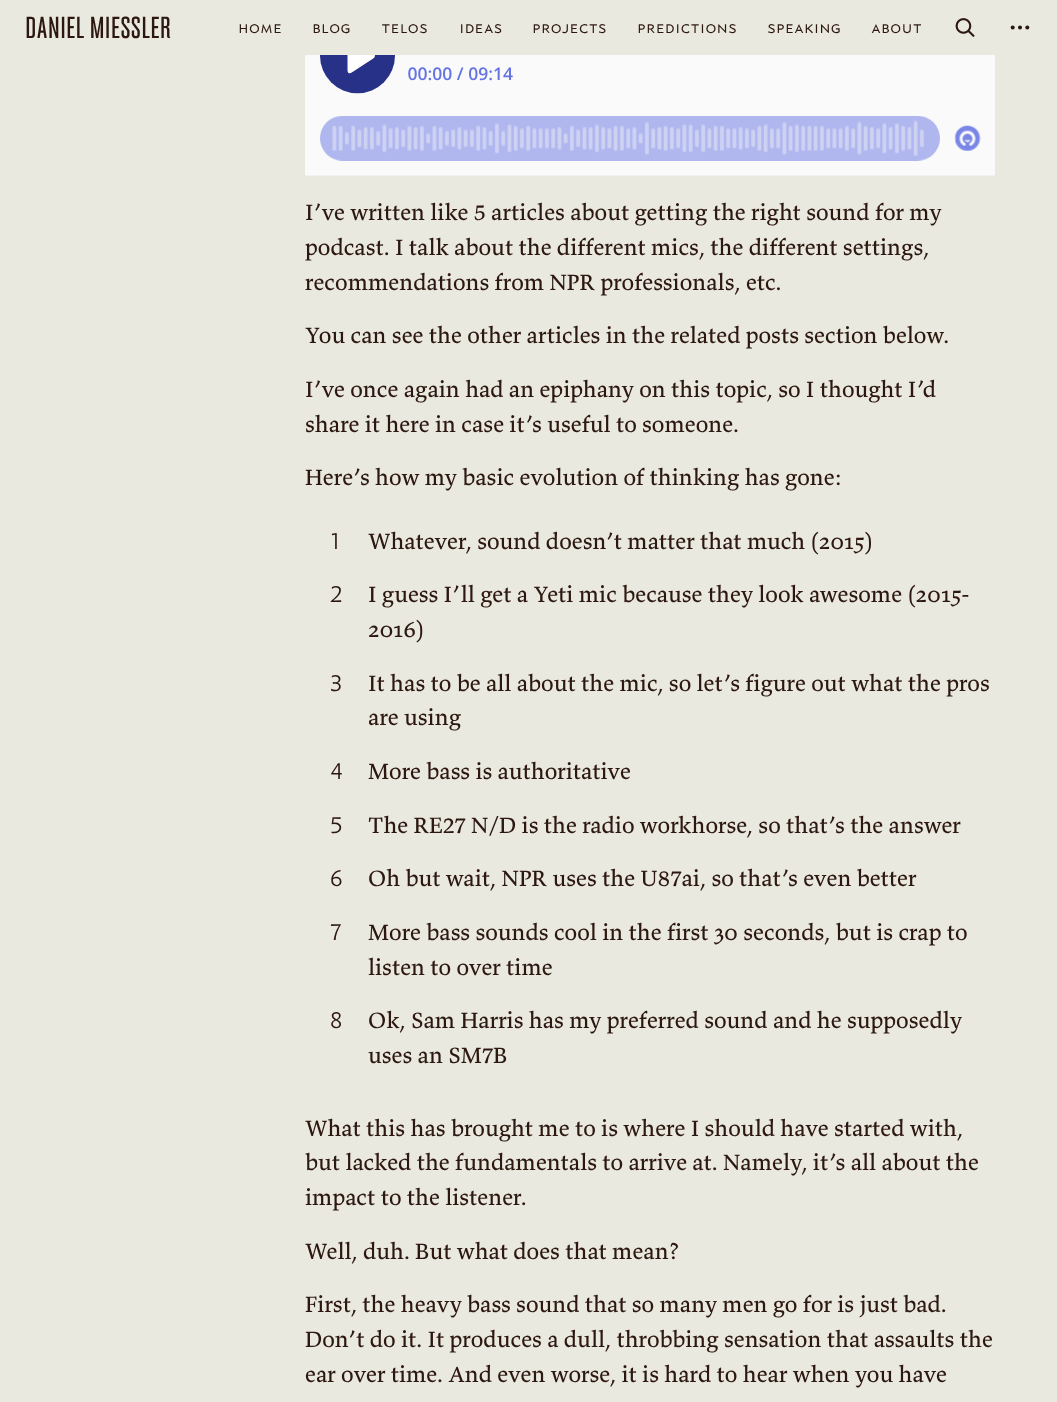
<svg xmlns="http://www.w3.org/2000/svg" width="1057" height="1402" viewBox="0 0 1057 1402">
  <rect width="100%" height="100%" fill="rgb(234,233,223)"/>
  <text x="25" y="38" font-family="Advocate" font-size="31.25" font-weight="200" fill="rgb(44,24,16)">DANIEL MIESSLER</text>
  <g font-family="'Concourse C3'" font-size="17.5" font-weight="300" fill="rgb(44,24,16)">
    <text x="238" y="33">home</text>
    <text x="312" y="33">blog</text>
    <text x="381" y="33">telos</text>
    <text x="459" y="33">ideas</text>
    <text x="532" y="33">projects</text>
    <text x="637" y="33">predictions</text>
    <text x="767" y="33">speaking</text>
    <text x="871" y="33">about</text>
  </g>
  <image x="955" y="18" width="20" height="19" href="pic1.png"/>
  <circle cx="1020" cy="27.5" r="1" fill="none" stroke="rgb(44,24,16)" stroke-width="2.1"/>
  <circle cx="1027.3" cy="27.5" r="1" fill="none" stroke="rgb(44,24,16)" stroke-width="2.1"/>
  <circle cx="1012.7" cy="27.5" r="1" fill="none" stroke="rgb(44,24,16)" stroke-width="2.1"/>
  <image x="305" y="55" width="690" height="121" href="pic2.png"/>
  <g font-family="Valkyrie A" font-size="23.1" fill="rgb(44,24,16)">
    <text>
      <tspan x="305" y="220">I’ve written like 5 articles about getting the right sound for my</tspan>
      <tspan x="305" y="255">podcast. I talk about the different mics, the different settings,</tspan>
      <tspan x="305" y="290">recommendations from NPR professionals, etc.</tspan>
    </text>
    <text x="305" y="343">You can see the other articles in the related posts section below.</text>
    <text>
      <tspan x="305" y="397">I’ve once again had an epiphany on this topic, so I thought I’d</tspan>
      <tspan x="305" y="432">share it here in case it’s useful to someone.</tspan>
    </text>
    <text x="305" y="485">Here’s how my basic evolution of thinking has gone:</text>
  </g>
  <text x="330" y="549" font-family="'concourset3'" font-size="23.1" font-weight="300" fill="rgb(44,24,16)">1</text>
  <text x="368" y="549" font-family="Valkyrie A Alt" font-size="23.1" fill="rgb(44,24,16)">Whatever, sound doesn’t matter that much (2015)</text>
  <text x="330" y="602" font-family="'concourset3'" font-size="23.1" font-weight="300" fill="rgb(44,24,16)">2</text>
  <g font-family="Valkyrie A Alt" font-size="23.1" fill="rgb(44,24,16)">
    <text>
      <tspan x="368" y="602">I guess I’ll get a Yeti mic because they look awesome (2015-</tspan>
      <tspan x="368" y="637">2016)</tspan>
    </text>
  </g>
  <text x="330" y="691" font-family="'concourset3'" font-size="23.1" font-weight="300" fill="rgb(44,24,16)">3</text>
  <g font-family="Valkyrie A" font-size="23.1" fill="rgb(44,24,16)">
    <text>
      <tspan x="368" y="691">It has to be all about the mic, so let’s figure out what the pros</tspan>
      <tspan x="368" y="725">are using</tspan>
    </text>
  </g>
  <text x="330" y="779" font-family="'concourset3'" font-size="23.1" font-weight="300" fill="rgb(44,24,16)">4</text>
  <text x="368" y="779" font-family="Valkyrie A" font-size="23.1" fill="rgb(44,24,16)">More bass is authoritative</text>
  <text x="330" y="833" font-family="'concourset3'" font-size="23.1" font-weight="300" fill="rgb(44,24,16)">5</text>
  <text x="368" y="833" font-family="Valkyrie A" font-size="23.1" fill="rgb(44,24,16)">The RE27 N/D is the radio workhorse, so that’s the answer</text>
  <text x="330" y="886" font-family="'concourset3'" font-size="23.1" font-weight="300" fill="rgb(44,24,16)">6</text>
  <text x="368" y="886" font-family="Valkyrie A" font-size="23.1" fill="rgb(44,24,16)">Oh but wait, NPR uses the U87ai, so that’s even better</text>
  <text x="330" y="940" font-family="'concourset3'" font-size="23.1" font-weight="300" fill="rgb(44,24,16)">7</text>
  <text x="368" y="940" font-family="Valkyrie A Alt" font-size="23.1" fill="rgb(44,24,16)">More bass sounds cool in the first 30 seconds, but is crap to</text>
  <text x="368" y="975" font-family="Valkyrie A" font-size="23.1" fill="rgb(44,24,16)">listen to over time</text>
  <text x="330" y="1028" font-family="'concourset3'" font-size="23.1" font-weight="300" fill="rgb(44,24,16)">8</text>
  <g font-family="Valkyrie A" font-size="23.1" fill="rgb(44,24,16)">
    <text>
      <tspan x="368" y="1028">Ok, Sam Harris has my preferred sound and he supposedly</tspan>
      <tspan x="368" y="1063">uses an SM7B</tspan>
    </text>
    <text>
      <tspan x="305" y="1136">What this has brought me to is where I should have started with,</tspan>
      <tspan x="305" y="1170">but lacked the fundamentals to arrive at. Namely, it’s all about the</tspan>
      <tspan x="305" y="1205">impact to the listener.</tspan>
    </text>
    <text x="305" y="1259">Well, duh. But what does that mean?</text>
    <text>
      <tspan x="305" y="1312">First, the heavy bass sound that so many men go for is just bad.</tspan>
      <tspan x="305" y="1347">Don’t do it. It produces a dull, throbbing sensation that assaults the</tspan>
      <tspan x="305" y="1382">ear over time. And even worse, it is hard to hear when you have</tspan>
    </text>
  </g>
</svg>
